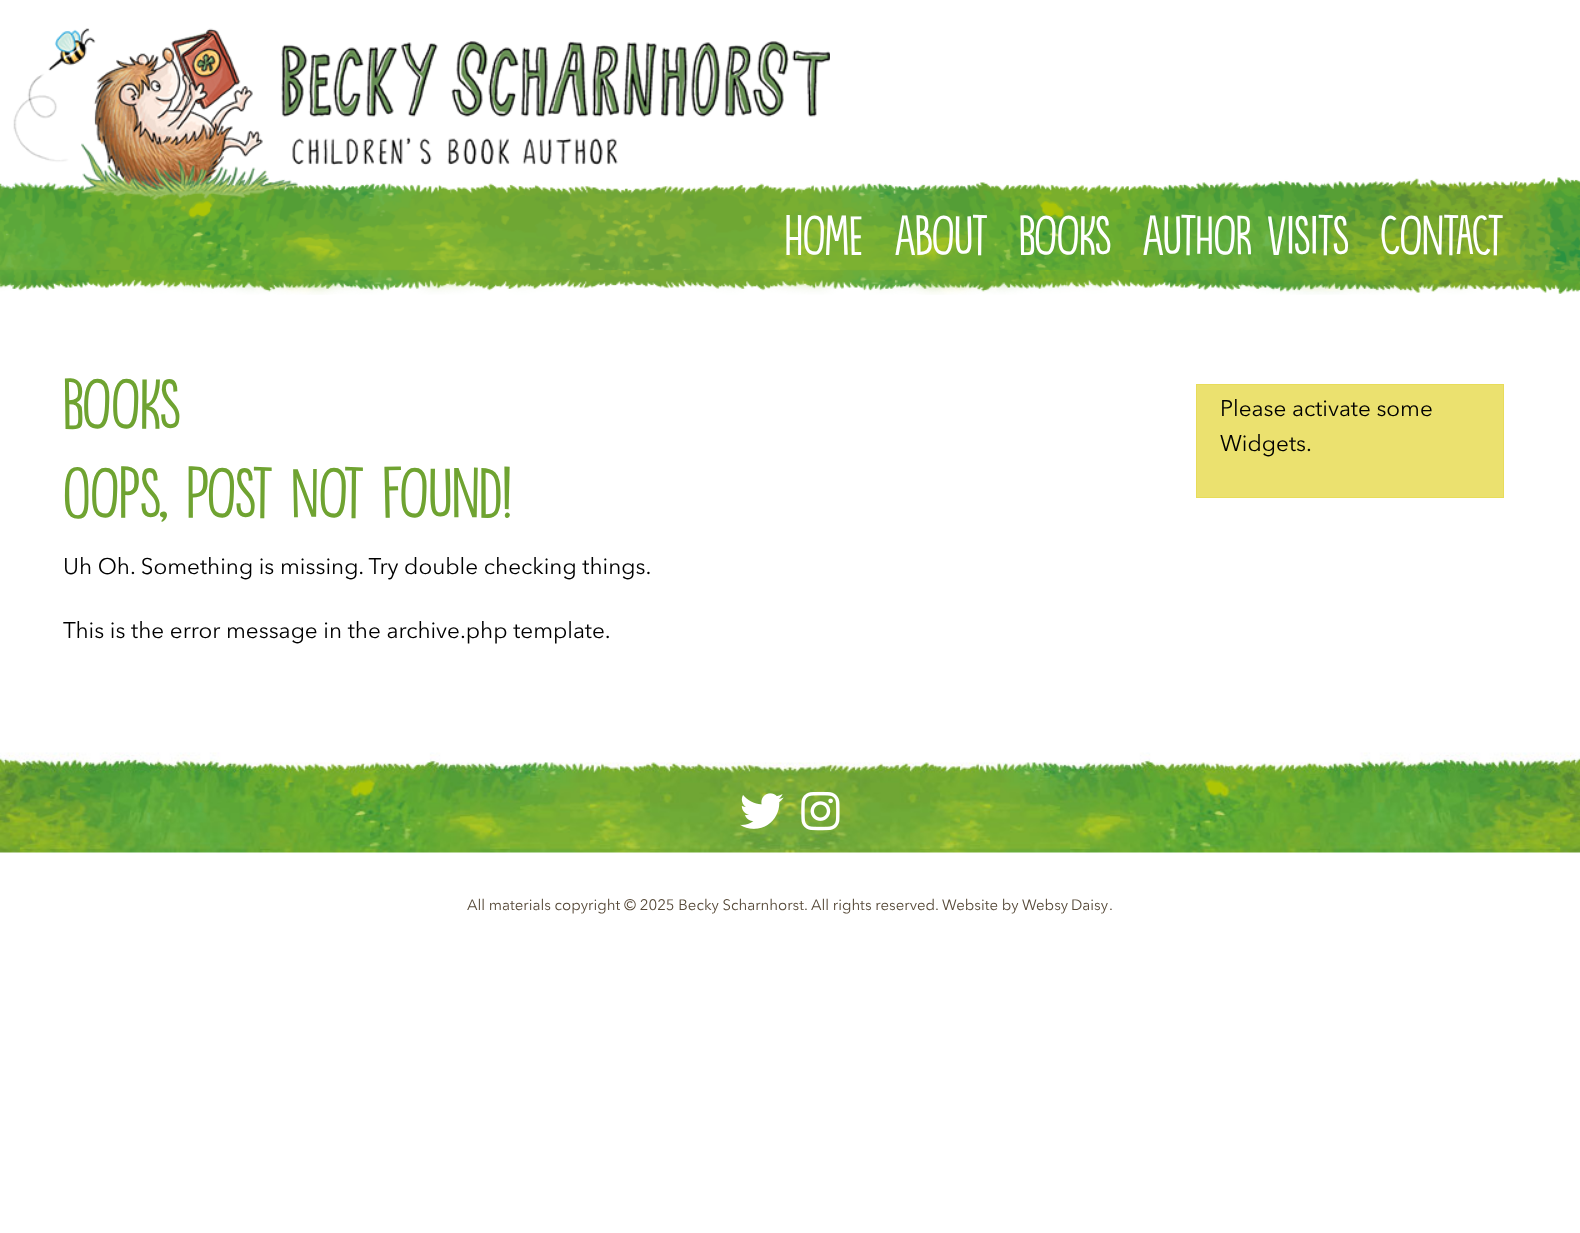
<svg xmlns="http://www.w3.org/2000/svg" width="1580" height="1233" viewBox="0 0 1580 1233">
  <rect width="100%" height="100%" fill="rgb(255,255,255)"/>
  <image x="0" y="170" width="1580" height="125" href="pic1.png"/>
  <image x="13" y="28" width="817" height="172" href="pic2.png"/>
  <g font-family="'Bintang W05'" font-size="50" fill="rgb(255,255,255)">
    <text x="785" y="255">Home</text>
    <text x="894" y="255">About</text>
    <text x="1019" y="255">Books</text>
    <text x="1142" y="255">Author Visits</text>
    <text x="1380" y="255">Contact</text>
  </g>
  <g font-family="'Bintang W05'" font-size="63.75" fill="rgb(111,163,49)">
    <text>
      <tspan x="63" y="429">Books</tspan>
      <tspan x="63" y="518">Oops, Post Not Found!</tspan>
    </text>
  </g>
  <g font-family="Avenir Next" font-size="22.5" fill="rgb(0,0,0)">
    <text x="63" y="574">Uh Oh. Something is missing. Try double checking things.</text>
    <text x="63" y="638">This is the error message in the archive.php template.</text>
  </g>
  <rect x="1196.5" y="384.5" width="307" height="113" fill="rgb(235,225,111)" stroke="rgb(232,220,89)"/>
  <g font-family="Avenir Next" font-size="22.5" fill="rgb(0,0,0)">
    <text>
      <tspan x="1220" y="416">Please activate some</tspan>
      <tspan x="1220" y="451">Widgets.</tspan>
    </text>
  </g>
  <image x="0" y="752" width="1580" height="101" href="pic3.png"/>
  <image x="740" y="793" width="44" height="36" href="pic4.png"/>
  <image x="801" y="791" width="39" height="40" href="pic5.png"/>
  <g font-family="Avenir Next" font-size="15" fill="rgb(86,73,56)">
    <text x="467" y="910">All materials copyright © 2025 Becky Scharnhorst. All rights reserved. Website by</text>
    <text x="1022" y="910" word-spacing="-1">Websy Daisy</text>
    <text x="1109" y="910">.</text>
  </g>
</svg>
